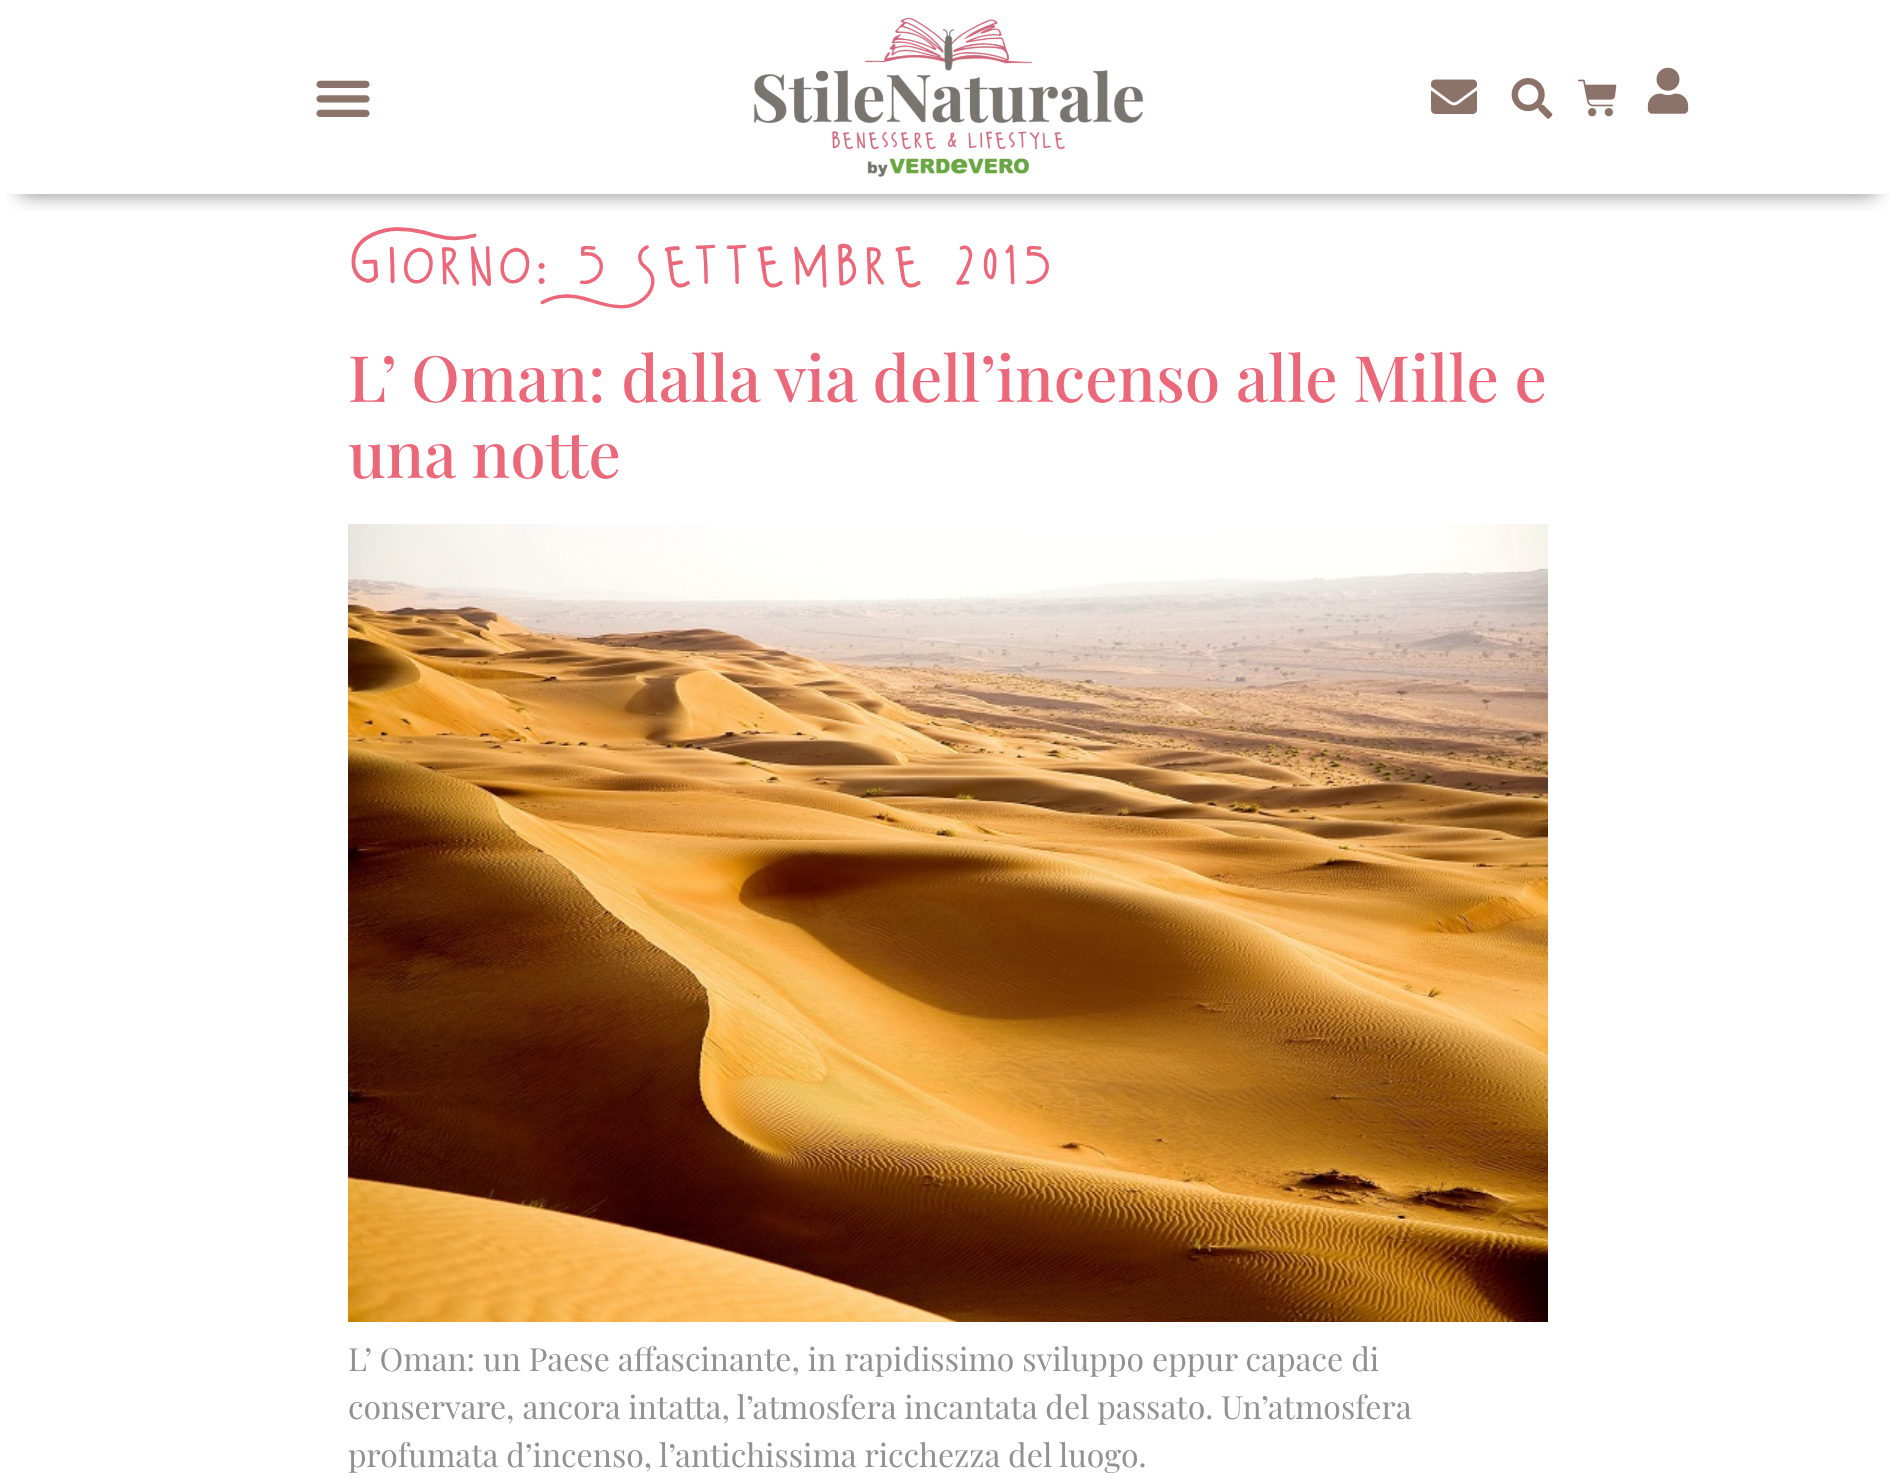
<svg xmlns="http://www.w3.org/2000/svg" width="1895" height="1481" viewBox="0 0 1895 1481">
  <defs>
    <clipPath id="clip1"><rect x="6" y="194" width="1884" height="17"/></clipPath>
  </defs>
  <rect width="100%" height="100%" fill="rgb(255,255,255)"/>
  <g clip-path="url(#clip1)">
    <rect x="20" y="40" width="1856" height="154" fill="rgba(0,0,0,0.5)" filter="blur(10px)"/>
  </g>
  <image x="316" y="80" width="54" height="37" href="pic1.png"/>
  <image x="753" y="17" width="391" height="160" href="pic2.png"/>
  <image x="1431" y="79" width="46" height="35" href="pic3.png"/>
  <image x="1511" y="78" width="42" height="41" href="pic4.png"/>
  <image x="1578" y="79" width="39" height="38" href="pic5.png"/>
  <image x="1647" y="67" width="42" height="47" href="pic6.png"/>
  <text x="348" y="284" font-family="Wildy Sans" font-size="80" fill="rgb(235,103,122)">Giorno: 5 Settembre 2015</text>
  <g font-family="Playfair Display" font-size="64" font-weight="500" fill="rgb(235,103,122)">
    <text>
      <tspan x="348" y="402">L’ Oman: dalla via dell’incenso alle Mille e</tspan>
      <tspan x="348" y="478">una notte</tspan>
    </text>
  </g>
  <image x="348" y="524" width="1200" height="798" href="pic7.png"/>
  <g font-family="Playfair Display" font-size="32" fill="rgb(146,145,145)">
    <text>
      <tspan x="348" y="1371">L’ Oman: un Paese affascinante, in rapidissimo sviluppo eppur capace di</tspan>
      <tspan x="348" y="1419">conservare, ancora intatta, l’atmosfera incantata del passato. Un’atmosfera</tspan>
      <tspan x="348" y="1467">profumata d’incenso, l’antichissima ricchezza del luogo.</tspan>
    </text>
  </g>
</svg>
